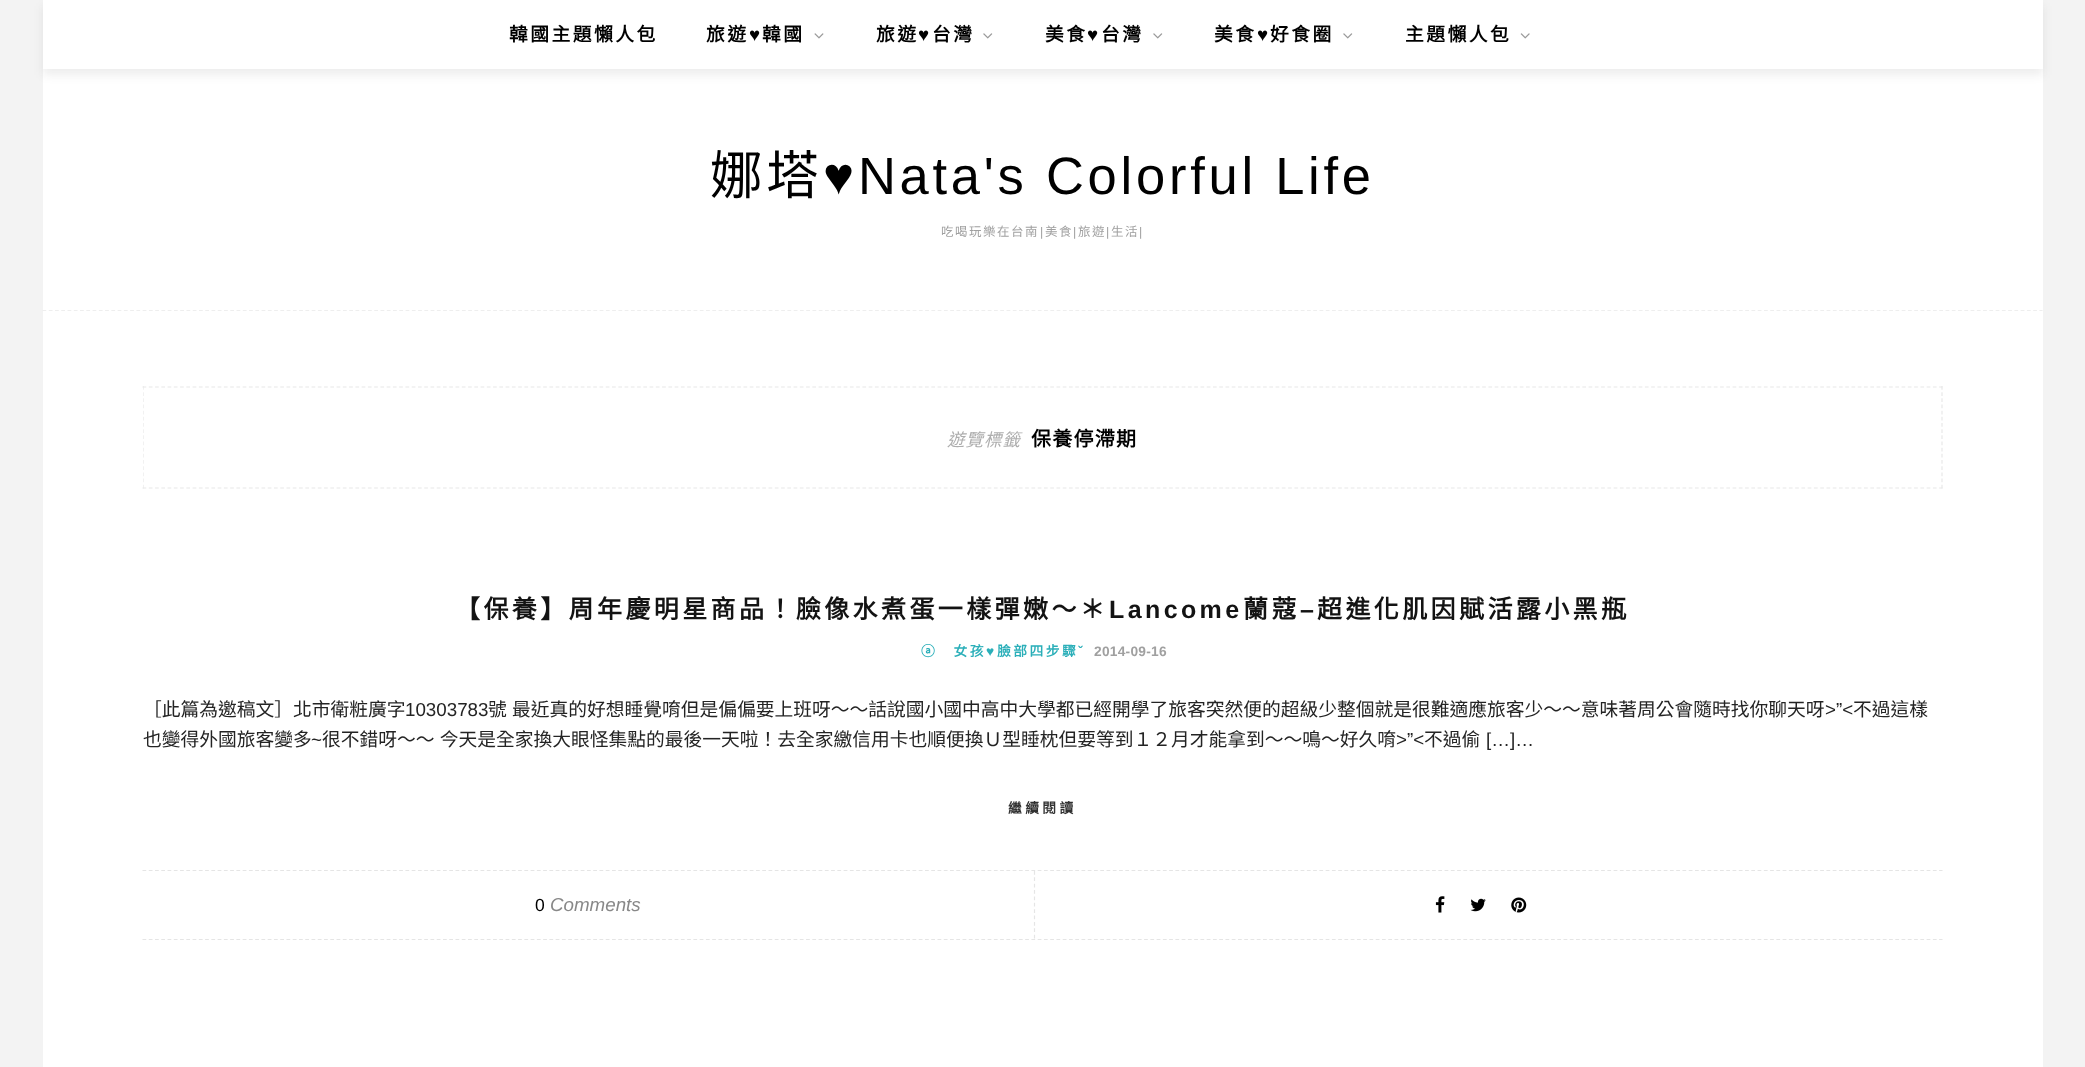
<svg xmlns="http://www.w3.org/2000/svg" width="2085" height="1067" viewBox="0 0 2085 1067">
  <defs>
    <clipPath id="clip1"><rect x="143" y="386" width="1800" height="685"/></clipPath>
  </defs>
  <rect width="100%" height="100%" fill="rgb(243,243,243)"/>
  <rect x="43" y="69" width="2000" height="998" fill="rgb(255,255,255)"/>
  <rect x="43" y="6" width="2000" height="69" fill="rgba(22,22,22,0.08)" filter="blur(5px)"/>
  <rect x="43" y="0" width="2000" height="69" fill="rgb(255,255,255)"/>
  <g font-family="Noto Sans CJK TC" font-size="18.75" font-weight="bold" letter-spacing="2.5" fill="rgb(0,0,0)">
    <text x="509" y="41">韓國主題懶人包</text>
    <text x="706" y="41">旅遊</text>
  </g>
  <text x="749" y="41" font-family="Liberation Sans" font-size="18.75" font-weight="bold" letter-spacing="2.5" fill="rgb(0,0,0)">♥</text>
  <text x="762" y="41" font-family="Noto Sans CJK TC" font-size="18.75" font-weight="bold" letter-spacing="2.5" fill="rgb(0,0,0)">韓國</text>
  <image x="814" y="33" width="10" height="6" href="pic1.png"/>
  <text x="876" y="41" font-family="Noto Sans CJK TC" font-size="18.75" font-weight="bold" letter-spacing="2.5" fill="rgb(0,0,0)">旅遊</text>
  <text x="918" y="41" font-family="Liberation Sans" font-size="18.75" font-weight="bold" letter-spacing="2.5" fill="rgb(0,0,0)">♥</text>
  <text x="932" y="41" font-family="Noto Sans CJK TC" font-size="18.75" font-weight="bold" letter-spacing="2.5" fill="rgb(0,0,0)">台灣</text>
  <image x="983" y="33" width="10" height="6" href="pic2.png"/>
  <text x="1045" y="41" font-family="Noto Sans CJK TC" font-size="18.75" font-weight="bold" letter-spacing="2.5" fill="rgb(0,0,0)">美食</text>
  <text x="1087" y="41" font-family="Liberation Sans" font-size="18.75" font-weight="bold" letter-spacing="2.5" fill="rgb(0,0,0)">♥</text>
  <text x="1101" y="41" font-family="Noto Sans CJK TC" font-size="18.75" font-weight="bold" letter-spacing="2.5" fill="rgb(0,0,0)">台灣</text>
  <image x="1153" y="33" width="10" height="6" href="pic2.png"/>
  <text x="1214" y="41" font-family="Noto Sans CJK TC" font-size="18.75" font-weight="bold" letter-spacing="2.5" fill="rgb(0,0,0)">美食</text>
  <text x="1257" y="41" font-family="Liberation Sans" font-size="18.75" font-weight="bold" letter-spacing="2.5" fill="rgb(0,0,0)">♥</text>
  <text x="1270" y="41" font-family="Noto Sans CJK TC" font-size="18.75" font-weight="bold" letter-spacing="2.5" fill="rgb(0,0,0)">好食圈</text>
  <image x="1343" y="33" width="10" height="6" href="pic2.png"/>
  <text x="1405" y="41" font-family="Noto Sans CJK TC" font-size="18.75" font-weight="bold" letter-spacing="2.5" fill="rgb(0,0,0)">主題懶人包</text>
  <image x="1520" y="33" width="10" height="6" href="pic3.png"/>
  <path d="M42.5 310.5H2042.5" fill="none" stroke="rgb(238,238,238)" stroke-width="1.2" stroke-dasharray="3.75 2.51"/>
  <text x="710" y="194" font-family="Noto Sans CJK TC" font-size="52.5" letter-spacing="3.75" fill="rgb(0,0,0)">娜塔</text>
  <text x="823" y="194" font-family="Liberation Sans" font-size="52.5" letter-spacing="3.75" fill="rgb(0,0,0)">♥Nata's Colorful Life</text>
  <text x="941" y="236" font-family="Noto Sans CJK TC" font-size="12.5" letter-spacing="1.5" fill="rgb(160,160,160)">吃喝玩樂在台南</text>
  <text x="1040" y="236" font-family="Liberation Sans" font-size="12.5" letter-spacing="1.5" fill="rgb(160,160,160)">|</text>
  <text x="1045" y="236" font-family="Noto Sans CJK TC" font-size="12.5" letter-spacing="1.5" fill="rgb(160,160,160)">美食</text>
  <text x="1073" y="236" font-family="Liberation Sans" font-size="12.5" letter-spacing="1.5" fill="rgb(160,160,160)">|</text>
  <text x="1078" y="236" font-family="Noto Sans CJK TC" font-size="12.5" letter-spacing="1.5" fill="rgb(160,160,160)">旅遊</text>
  <text x="1106" y="236" font-family="Liberation Sans" font-size="12.5" letter-spacing="1.5" fill="rgb(160,160,160)">|</text>
  <text x="1111" y="236" font-family="Noto Sans CJK TC" font-size="12.5" letter-spacing="1.5" fill="rgb(160,160,160)">生活</text>
  <text x="1139" y="236" font-family="Liberation Sans" font-size="12.5" letter-spacing="1.5" fill="rgb(160,160,160)">|</text>
  <path d="M142.5 387H1942.5" fill="none" stroke="rgb(232,232,232)" stroke-width="1.2" stroke-dasharray="3.75 2.51"/>
  <path d="M1942 386V489" fill="none" stroke="rgb(232,232,232)" stroke-width="1.2" stroke-dasharray="3.75 2.42"/>
  <path d="M142.5 488H1942.5" fill="none" stroke="rgb(232,232,232)" stroke-width="1.2" stroke-dasharray="3.75 2.51"/>
  <g clip-path="url(#clip1)">
    <path d="M143 386V489" fill="none" stroke="rgb(232,232,232)" stroke-width="1.2" stroke-dasharray="3.75 2.42"/>
  </g>
  <text x="947" y="446" font-family="Noto Sans CJK TC" font-size="17.5" font-style="italic" letter-spacing="1" fill="rgb(173,173,173)">遊覽標籤</text>
  <text x="1031" y="446" font-family="Noto Sans CJK TC" font-size="20" font-weight="bold" letter-spacing="1.25" fill="rgb(0,0,0)">保養停滯期</text>
  <text x="455" y="618" font-family="Noto Sans CJK TC" font-size="25" font-weight="bold" letter-spacing="3.4" fill="rgb(19,19,19)">【保養】周年慶明星商品！臉像水煮蛋一樣彈嫩～＊</text>
  <text x="1109" y="618" font-family="Liberation Sans" font-size="25" font-weight="bold" letter-spacing="3.4" fill="rgb(19,19,19)">Lancome</text>
  <text x="1243" y="618" font-family="Noto Sans CJK TC" font-size="25" font-weight="bold" letter-spacing="3.4" fill="rgb(19,19,19)">蘭蔻</text>
  <text x="1300" y="618" font-family="Liberation Sans" font-size="25" font-weight="bold" letter-spacing="3.4" fill="rgb(19,19,19)">–</text>
  <text x="1317" y="618" font-family="Noto Sans CJK TC" font-size="25" font-weight="bold" letter-spacing="3.4" fill="rgb(19,19,19)">超進化肌因賦活露小黑瓶</text>
  <g font-family="Noto Sans CJK TC" font-size="13.75" font-weight="bold" letter-spacing="2.5" fill="rgb(43,175,185)">
    <text x="921" y="656">ⓐ　女孩</text>
    <text x="997" y="656">臉部四步驟</text>
  </g>
  <g font-family="Liberation Sans" font-size="13.75" font-weight="bold" letter-spacing="2.5" fill="rgb(43,175,185)">
    <text x="1078" y="656">ˇ</text>
    <text x="986" y="656">♥</text>
  </g>
  <text x="1094" y="656" font-family="Liberation Sans" font-size="13.75" font-weight="bold" letter-spacing="0.25" fill="rgb(160,160,160)">2014-09-16</text>
  <text x="143" y="716" font-family="Noto Sans CJK TC" font-size="18.75" fill="rgb(36,36,36)">［此篇為邀稿文］北市衛粧廣字</text>
  <text x="405" y="716" font-family="Liberation Sans" font-size="18.75" fill="rgb(36,36,36)">10303783</text>
  <text x="488" y="716" word-spacing="1" font-family="Noto Sans CJK TC" font-size="18.75" fill="rgb(36,36,36)">號 最近真的好想睡覺唷但是偏偏要上班呀～～話說國小國中高中大學都已經開學了旅客突然便的超級少整個就是很難適應旅客少～～意味著周公會隨時找你聊天呀</text>
  <text x="1825" y="716" font-family="Liberation Sans" font-size="18.75" fill="rgb(36,36,36)">&gt;”&lt;</text>
  <g font-family="Noto Sans CJK TC" font-size="18.75" fill="rgb(36,36,36)">
    <text x="1853" y="716">不過這樣</text>
    <text x="143" y="746">也變得外國旅客變多</text>
  </g>
  <text x="311" y="746" font-family="Liberation Sans" font-size="18.75" fill="rgb(36,36,36)">~</text>
  <text x="322" y="746" word-spacing="1" font-family="Noto Sans CJK TC" font-size="18.75" fill="rgb(36,36,36)">很不錯呀～～ 今天是全家換大眼怪集點的最後一天啦！去全家繳信用卡也順便換Ｕ型睡枕但要等到１２月才能拿到～～鳴～好久唷</text>
  <text x="1396" y="746" font-family="Liberation Sans" font-size="18.75" fill="rgb(36,36,36)">&gt;”&lt;</text>
  <text x="1424" y="746" font-family="Noto Sans CJK TC" font-size="18.75" fill="rgb(36,36,36)">不過偷</text>
  <text x="1486" y="746" font-family="Liberation Sans" font-size="18.75" fill="rgb(36,36,36)">[…]…</text>
  <text x="1008" y="813" font-family="Noto Sans CJK TC" font-size="13.75" font-weight="bold" letter-spacing="3.4" fill="rgb(49,49,49)">繼續閱讀</text>
  <path d="M142.5 870.5H1942.5" fill="none" stroke="rgb(229,229,229)" stroke-width="1.2" stroke-dasharray="3.75 2.51"/>
  <path d="M142.5 939.5H1942.5" fill="none" stroke="rgb(229,229,229)" stroke-width="1.2" stroke-dasharray="3.75 2.51"/>
  <text x="535" y="911" font-family="Liberation Sans" font-size="17.5" fill="rgb(0,0,0)">0</text>
  <text x="550" y="911" font-family="Liberation Sans" font-size="18.75" font-style="italic" fill="rgb(136,136,136)">Comments</text>
  <path d="M1034.5 871V939" fill="none" stroke="rgb(229,229,229)" stroke-width="1.2" stroke-dasharray="3.75 2.62"/>
  <image x="1435" y="896" width="10" height="17" href="pic4.png"/>
  <image x="1470" y="898" width="16" height="14" href="pic5.png"/>
  <image x="1511" y="897" width="16" height="16" href="pic6.png"/>
</svg>
